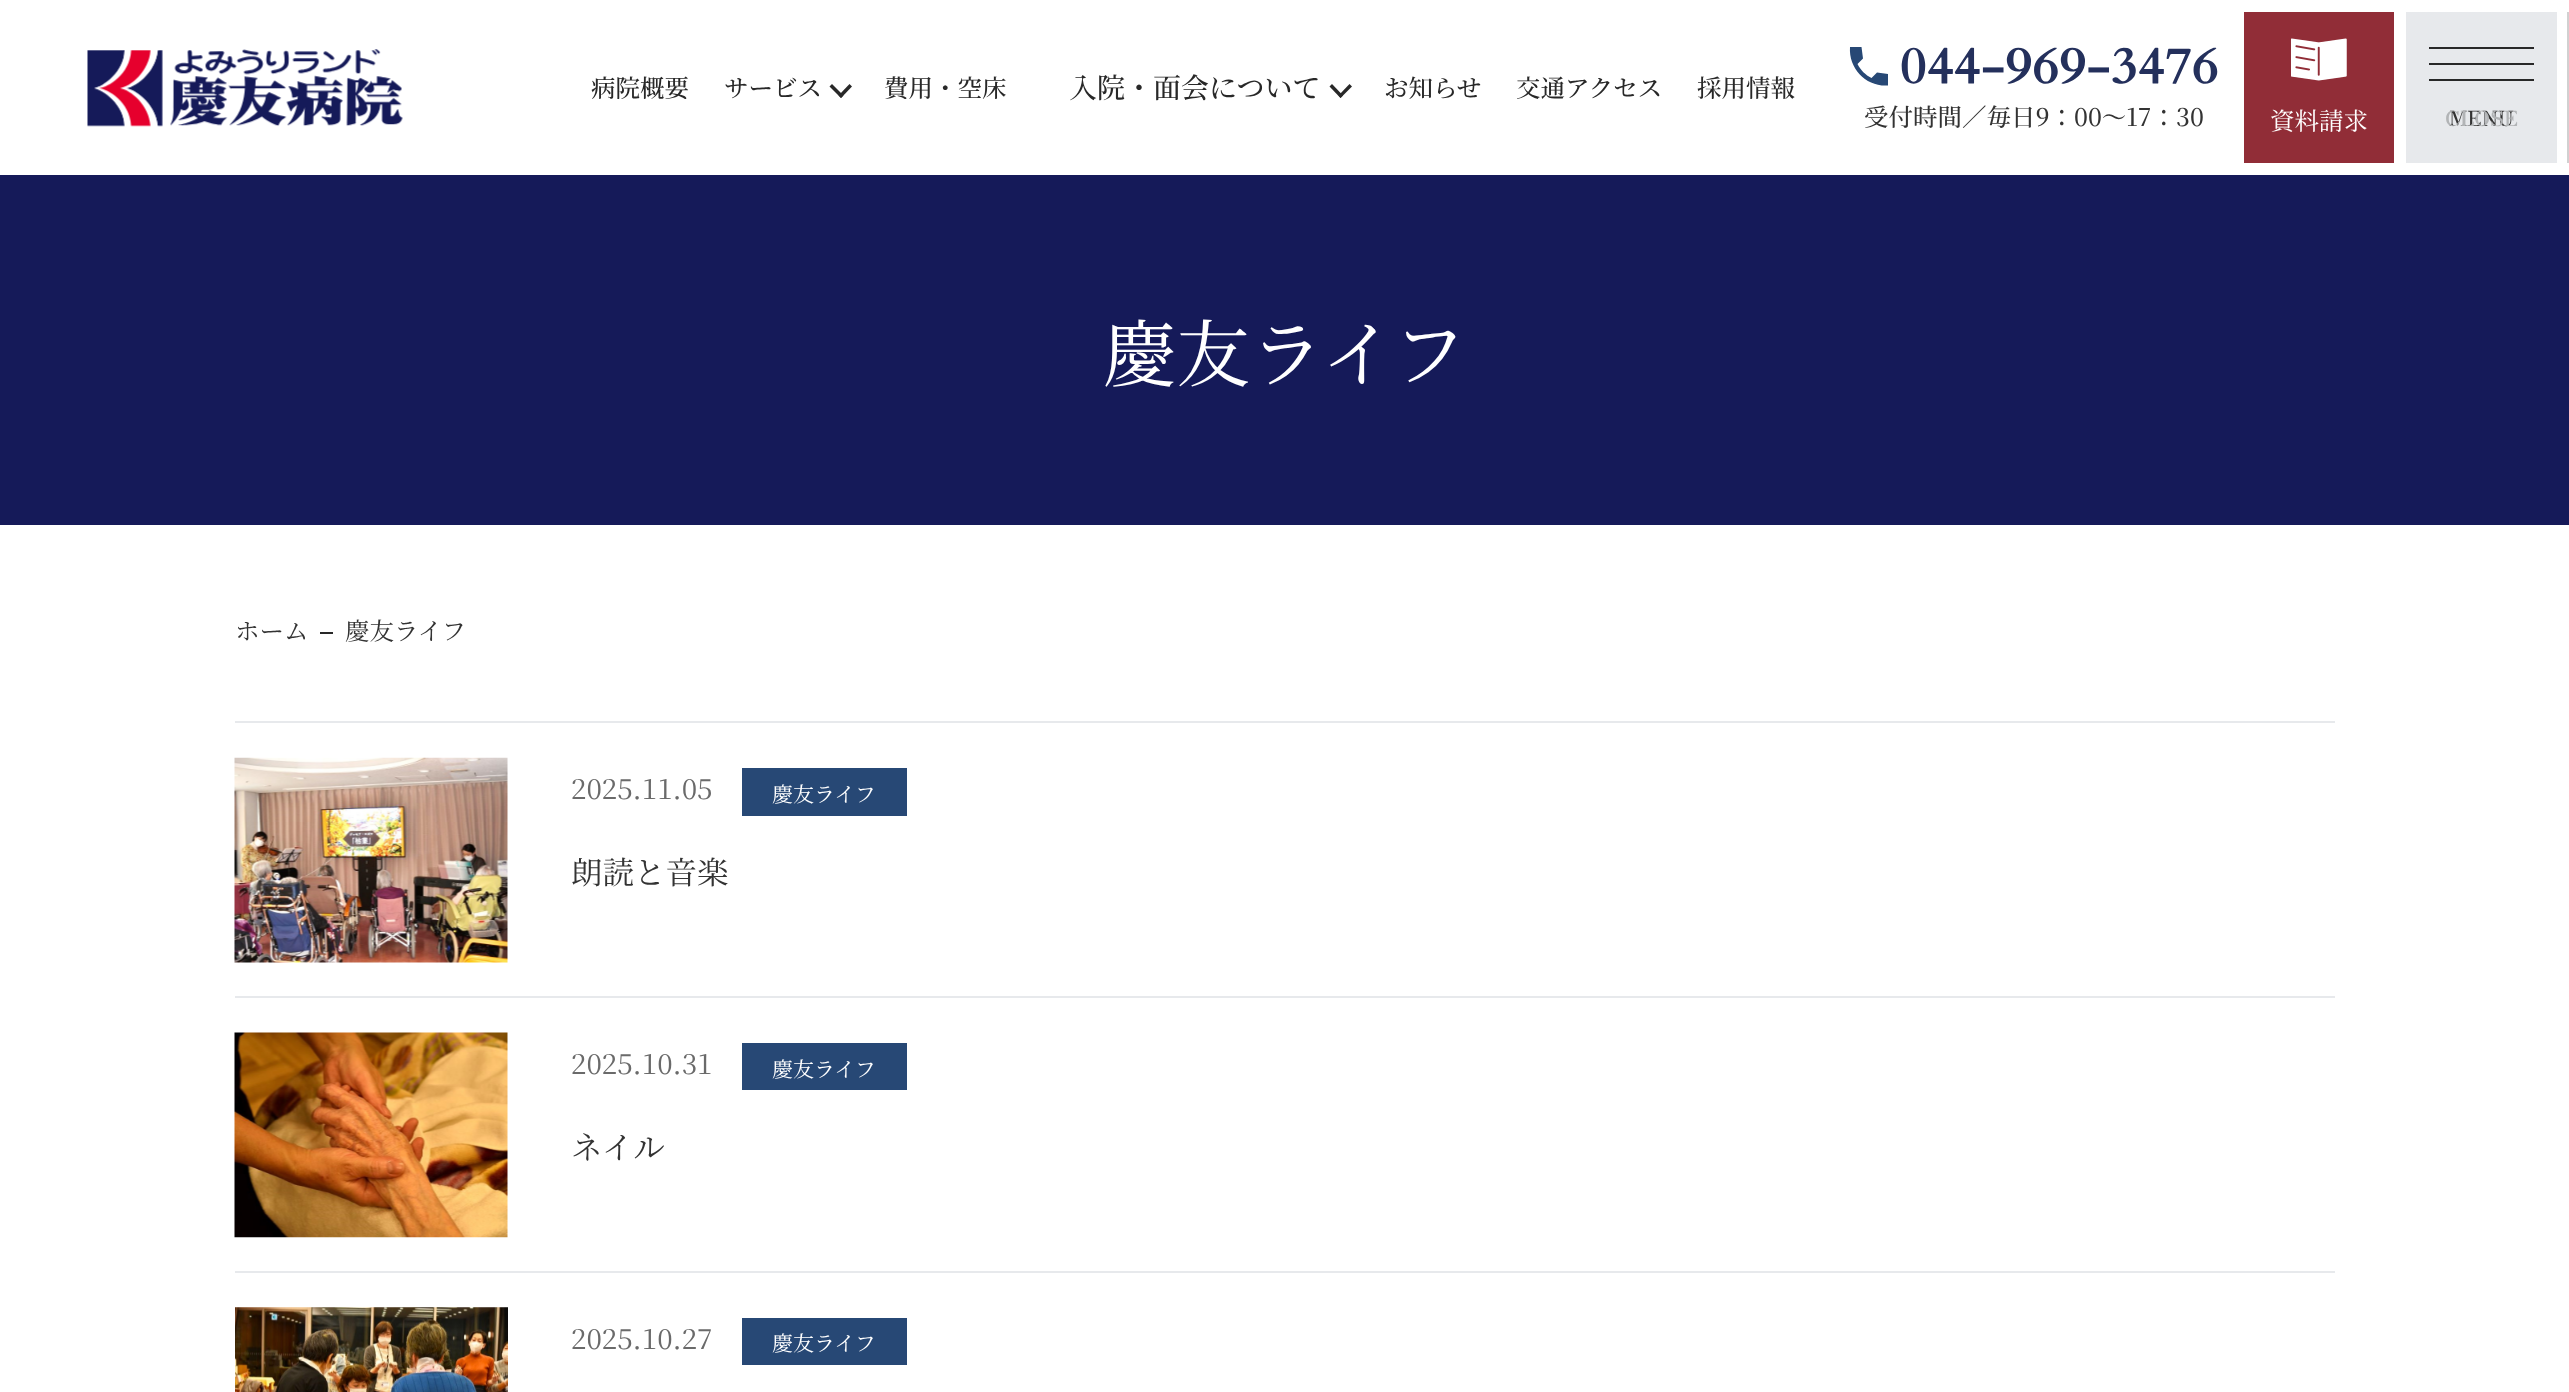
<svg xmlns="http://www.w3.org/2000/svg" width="2569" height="1392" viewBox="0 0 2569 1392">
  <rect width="100%" height="100%" fill="rgb(255,255,255)"/>
  <image x="87" y="49" width="316" height="78" href="pic1.png"/>
  <g font-family="Noto Serif JP" font-size="24.5" font-weight="500" fill="rgb(40,40,40)">
    <text x="591" y="97">病院概要</text>
    <text x="724" y="97">サービス</text>
  </g>
  <path d="M852 86.5L841 98L838.5 95.5L849.5 84Z" fill="rgb(40,40,40)"/>
  <path d="M843.5 95.5L841 98L829.5 86.5L832 84Z" fill="rgb(40,40,40)"/>
  <text x="884" y="97" font-family="Noto Serif JP" font-size="24.5" font-weight="500" fill="rgb(40,40,40)">費用・空床</text>
  <text x="1069" y="98" font-family="Noto Serif JP" font-size="28" font-weight="500" fill="rgb(40,40,40)">入院・面会について</text>
  <path d="M1352 86.5L1340.5 98L1338.5 95.5L1349.5 84Z" fill="rgb(40,40,40)"/>
  <path d="M1343 95.5L1340.5 98L1329.5 86.5L1332 84Z" fill="rgb(40,40,40)"/>
  <g font-family="Noto Serif JP" font-size="24.5" font-weight="500" fill="rgb(40,40,40)">
    <text x="1384" y="97">お知らせ</text>
    <text x="1516" y="97">交通アクセス</text>
    <text x="1697" y="97">採用情報</text>
  </g>
  <rect x="2567" y="12" width="2" height="151" fill="rgb(209,209,209)"/>
  <path d="M1888 74L1877 72.5L1871.5 78C1865.5 75 1860.5 70 1857.5 64L1863 58.5L1861.5 47H1850C1848.5 69 1866.5 87 1888 85.5Z" fill="rgb(39,72,117)"/>
  <text x="1900" y="83" font-family="Cardo" font-size="52.5" font-weight="bold" fill="rgb(36,48,92)">044-969-3476</text>
  <text x="1864" y="126" font-family="Noto Serif JP" font-size="24.5" font-weight="500" fill="rgb(51,51,51)">受付時間／毎日9：00～17：30</text>
  <rect x="2244" y="12" width="150" height="151" fill="rgb(145,45,55)"/>
  <image x="2291" y="38" width="56" height="43" href="pic2.png"/>
  <text x="2270" y="130" font-family="Noto Serif JP" font-size="24.5" fill="rgb(255,255,255)">資料請求</text>
  <rect x="2406" y="12" width="151" height="151" fill="rgb(231,233,236)"/>
  <rect x="2429" y="63" width="105" height="2" fill="rgb(40,40,40)"/>
  <rect x="2429" y="47" width="105" height="2" fill="rgb(40,40,40)"/>
  <rect x="2429" y="79" width="105" height="2" fill="rgb(40,40,40)"/>
  <text x="2449" y="126" font-family="Zen Old Mincho" font-size="21" font-weight="600" fill="rgb(51,51,51)">MENU</text>
  <text x="2445" y="126" font-family="Zen Old Mincho" font-size="21" font-weight="600" fill="rgb(178,180,182)">CLOSE</text>
  <rect x="0" y="175" width="2569" height="350" fill="rgb(21,26,89)"/>
  <text x="1103" y="381" font-family="Noto Serif JP" font-size="73.5" fill="rgb(255,255,255)">慶友ライフ</text>
  <text x="235" y="640" font-family="Noto Serif JP" font-size="24.5" fill="rgb(51,51,51)">ホーム</text>
  <rect x="320" y="632" width="13" height="2" fill="rgb(40,40,40)"/>
  <text x="345" y="640" font-family="Noto Serif JP" font-size="24.5" fill="rgb(51,51,51)">慶友ライフ</text>
  <rect x="235" y="721" width="2100" height="2" fill="rgb(231,233,236)"/>
  <rect x="235" y="996" width="2100" height="2" fill="rgb(231,233,236)"/>
  <image x="234" y="757" width="274" height="206" href="pic3.png"/>
  <text x="571" y="799" font-family="Noto Serif JP" font-size="28" fill="rgb(106,106,106)">2025.11.05</text>
  <rect x="742" y="768" width="165" height="48" fill="rgb(39,72,117)"/>
  <text x="772" y="802" font-family="Noto Serif JP" font-size="21" fill="rgb(255,255,255)">慶友ライフ</text>
  <text x="571" y="884" font-family="Noto Serif JP" font-size="31.5" fill="rgb(51,51,51)">朗読と音楽</text>
  <rect x="235" y="1271" width="2100" height="2" fill="rgb(231,233,236)"/>
  <image x="234" y="1032" width="274" height="206" href="pic4.png"/>
  <text x="571" y="1074" font-family="Noto Serif JP" font-size="28" fill="rgb(106,106,106)">2025.10.31</text>
  <rect x="742" y="1043" width="165" height="47" fill="rgb(39,72,117)"/>
  <text x="772" y="1077" font-family="Noto Serif JP" font-size="21" fill="rgb(255,255,255)">慶友ライフ</text>
  <text x="571" y="1159" font-family="Noto Serif JP" font-size="31.5" fill="rgb(51,51,51)">ネイル</text>
  <image x="235" y="1307" width="273" height="85" href="pic5.png"/>
  <text x="571" y="1349" font-family="Noto Serif JP" font-size="28" fill="rgb(106,106,106)">2025.10.27</text>
  <rect x="742" y="1318" width="165" height="47" fill="rgb(39,72,117)"/>
  <text x="772" y="1351" font-family="Noto Serif JP" font-size="21" fill="rgb(255,255,255)">慶友ライフ</text>
</svg>
